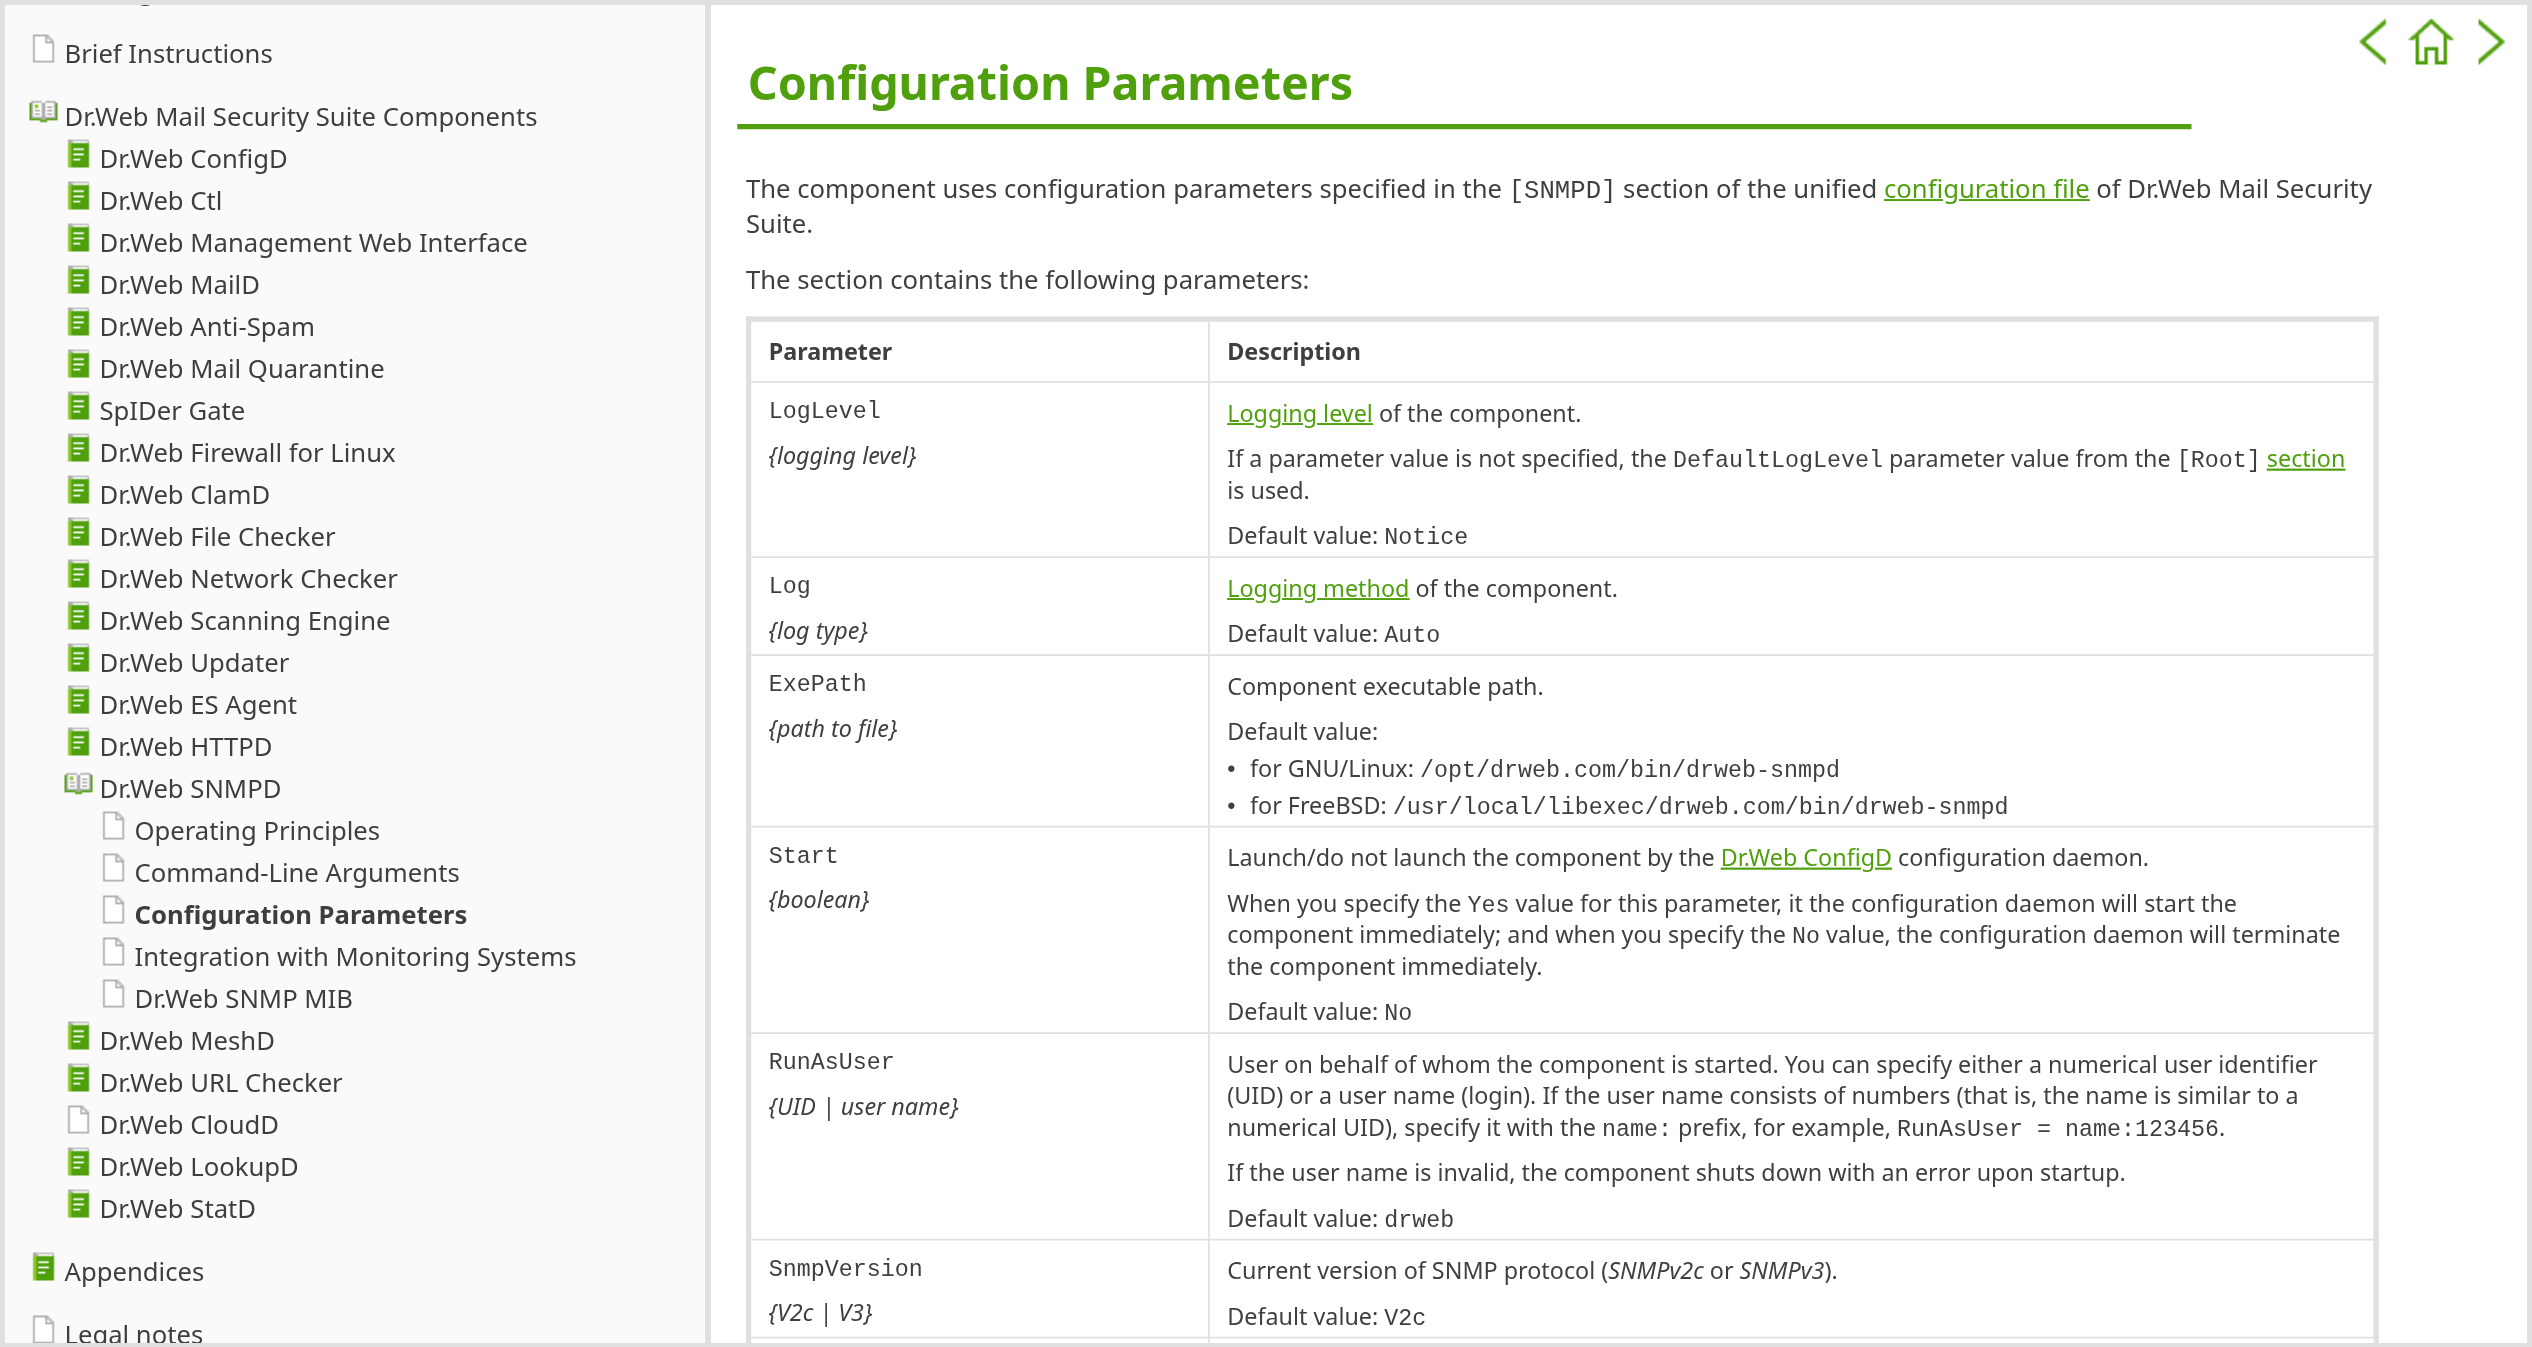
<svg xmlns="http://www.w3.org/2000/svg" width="2532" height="1347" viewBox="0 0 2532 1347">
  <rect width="100%" height="100%" fill="rgb(224,224,224)"/>
  <image x="5" y="5" width="700" height="1338" href="pic1.png"/>
  <image x="711" y="5" width="1816" height="1338" href="pic2.png"/>
</svg>
